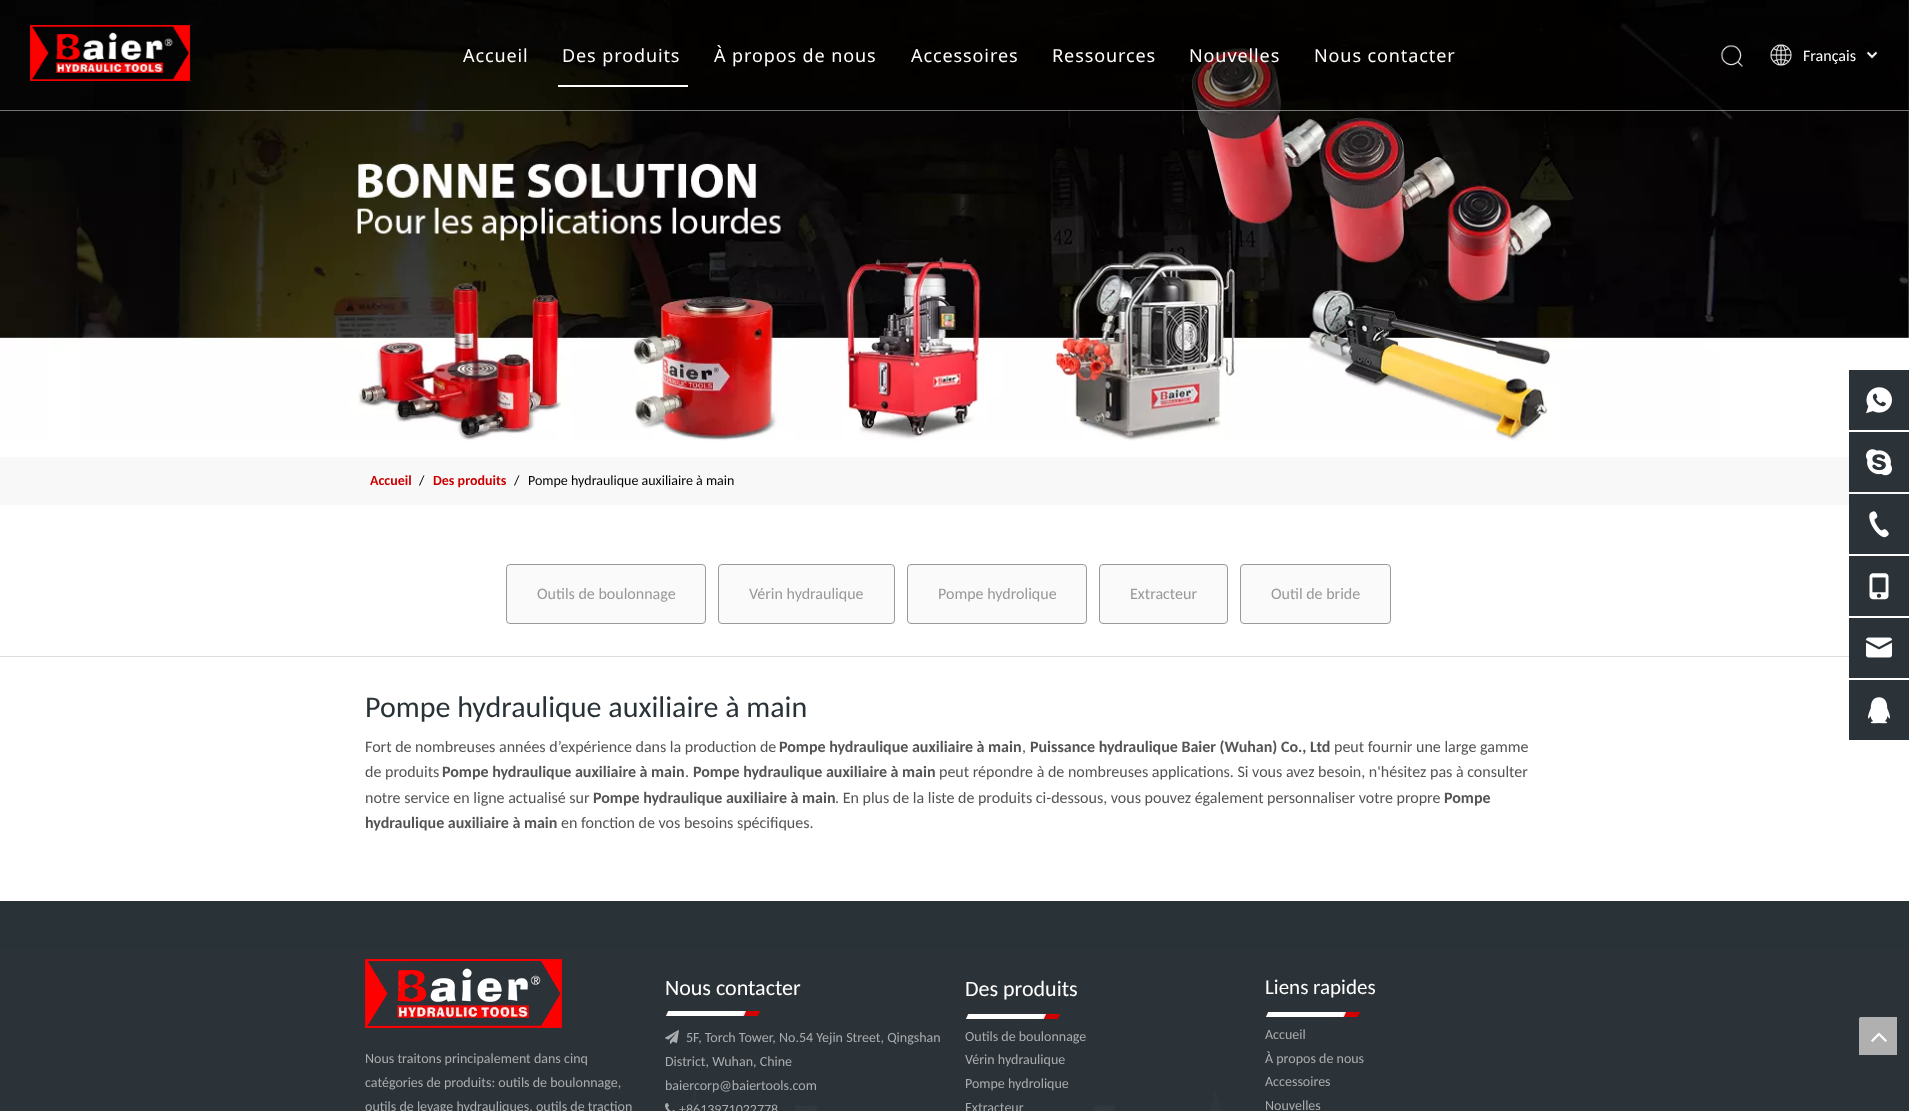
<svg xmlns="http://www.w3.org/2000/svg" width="1909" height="1111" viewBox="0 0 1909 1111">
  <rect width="100%" height="100%" fill="rgb(255,255,255)"/>
  <image x="0" y="0" width="1909" height="441" href="pic5.png"/>
  <rect x="94" y="0" width="1815" height="111" fill="rgba(0,0,0,0.4)"/>
  <rect x="0" y="110" width="1909" height="1" fill="rgba(255,255,255,0.45)"/>
  <image x="30" y="25" width="160" height="56" href="pic1.png"/>
  <g font-family="Noto Sans" font-size="18" letter-spacing="0.9" fill="rgb(255,255,255)">
    <text x="463" y="62">Accueil</text>
    <text x="562" y="62">Des produits</text>
  </g>
  <rect x="558" y="85" width="130" height="2" fill="rgb(255,255,255)"/>
  <g font-family="Noto Sans" font-size="18" letter-spacing="0.9" fill="rgb(255,255,255)">
    <text x="714" y="62">À propos de nous</text>
    <text x="911" y="62">Accessoires</text>
    <text x="1052" y="62">Ressources</text>
    <text x="1189" y="62">Nouvelles</text>
    <text x="1314" y="62">Nous contacter</text>
  </g>
  <image x="1720" y="45" width="23" height="22" href="pic2.png"/>
  <image x="1770" y="44" width="22" height="22" href="pic3.png"/>
  <text x="1803" y="61" font-family="Carlito" font-size="16" fill="rgb(255,255,255)">Français</text>
  <image x="1866" y="51" width="12" height="8" href="pic4.png"/>
  <rect x="0" y="457" width="1909" height="48" fill="rgb(248,248,248)"/>
  <text x="370" y="485" font-family="Carlito" font-size="14" font-weight="bold" fill="rgb(204,0,0)">Accueil</text>
  <text x="419" y="485" font-family="Carlito" font-size="14" fill="rgb(0,0,0)">/</text>
  <text x="433" y="485" font-family="Carlito" font-size="14" font-weight="bold" fill="rgb(204,0,0)">Des produits</text>
  <g font-family="Carlito" font-size="14" fill="rgb(0,0,0)">
    <text x="514" y="485">/</text>
    <text x="528" y="485">Pompe hydraulique auxiliaire à main</text>
  </g>
  <rect x="506.5" y="564.5" width="199" height="59" rx="3.5" fill="rgb(250,250,250)" stroke="rgb(153,153,153)"/>
  <text x="537" y="599" font-family="Carlito" font-size="16" fill="rgb(153,153,153)">Outils de boulonnage</text>
  <rect x="718.5" y="564.5" width="176" height="59" rx="3.5" fill="rgb(250,250,250)" stroke="rgb(153,153,153)"/>
  <text x="749" y="599" font-family="Carlito" font-size="16" fill="rgb(153,153,153)">Vérin hydraulique</text>
  <rect x="907.5" y="564.5" width="179" height="59" rx="3.5" fill="rgb(250,250,250)" stroke="rgb(153,153,153)"/>
  <text x="938" y="599" font-family="Carlito" font-size="16" fill="rgb(153,153,153)">Pompe hydrolique</text>
  <rect x="1099.5" y="564.5" width="128" height="59" rx="3.5" fill="rgb(250,250,250)" stroke="rgb(153,153,153)"/>
  <text x="1130" y="599" font-family="Carlito" font-size="16" fill="rgb(153,153,153)">Extracteur</text>
  <rect x="1240.5" y="564.5" width="150" height="59" rx="3.5" fill="rgb(250,250,250)" stroke="rgb(153,153,153)"/>
  <text x="1271" y="599" font-family="Carlito" font-size="16" fill="rgb(153,153,153)">Outil de bride</text>
  <rect x="0" y="656" width="1849" height="1" fill="rgb(221,221,221)"/>
  <text x="365" y="717" font-family="Carlito" font-size="30" fill="rgb(41,50,55)">Pompe hydraulique auxiliaire à main</text>
  <text x="365" y="752" font-family="Carlito" font-size="16" fill="rgb(84,84,84)">Fort de nombreuses années d’expérience dans la production de</text>
  <text x="779" y="752" font-family="Carlito" font-size="16" font-weight="bold" fill="rgb(84,84,84)">Pompe hydraulique auxiliaire à main</text>
  <text x="1022" y="752" font-family="Carlito" font-size="16" fill="rgb(84,84,84)">,</text>
  <text x="1030" y="752" font-family="Carlito" font-size="16" font-weight="bold" fill="rgb(84,84,84)">Puissance hydraulique Baier (Wuhan) Co., Ltd</text>
  <g font-family="Carlito" font-size="16" fill="rgb(84,84,84)">
    <text x="1334" y="752">peut fournir une large gamme</text>
    <text x="365" y="777">de produits</text>
  </g>
  <text x="442" y="777" font-family="Carlito" font-size="16" font-weight="bold" fill="rgb(84,84,84)">Pompe hydraulique auxiliaire à main</text>
  <text x="685" y="777" font-family="Carlito" font-size="16" fill="rgb(84,84,84)">.</text>
  <text x="693" y="777" font-family="Carlito" font-size="16" font-weight="bold" fill="rgb(84,84,84)">Pompe hydraulique auxiliaire à main</text>
  <g font-family="Carlito" font-size="16" fill="rgb(84,84,84)">
    <text x="939" y="777">peut répondre à de nombreuses applications. Si vous avez besoin, n'hésitez pas à consulter</text>
    <text x="365" y="803">notre service en ligne actualisé sur</text>
  </g>
  <text x="593" y="803" font-family="Carlito" font-size="16" font-weight="bold" fill="rgb(84,84,84)">Pompe hydraulique auxiliaire à main</text>
  <text x="835" y="803" font-family="Carlito" font-size="16" fill="rgb(84,84,84)">. En plus de la liste de produits ci-dessous, vous pouvez également personnaliser votre propre</text>
  <g font-family="Carlito" font-size="16" font-weight="bold" fill="rgb(84,84,84)">
    <text x="1444" y="803">Pompe</text>
    <text x="365" y="828">hydraulique auxiliaire à main</text>
  </g>
  <text x="561" y="828" font-family="Carlito" font-size="16" fill="rgb(84,84,84)">en fonction de vos besoins spécifiques.</text>
  <rect x="0" y="901" width="1909" height="48" fill="rgb(41,50,55)"/>
  <rect x="1849" y="370" width="60" height="60" fill="rgb(43,50,56)"/>
  <image x="1866" y="387" width="26" height="27" href="pic6.png"/>
  <rect x="1849" y="432" width="60" height="60" fill="rgb(43,50,56)"/>
  <image x="1866" y="449" width="26" height="27" href="pic7.png"/>
  <rect x="1849" y="494" width="60" height="60" fill="rgb(43,50,56)"/>
  <image x="1869" y="511" width="20" height="27" href="pic8.png"/>
  <rect x="1849" y="556" width="60" height="60" fill="rgb(43,50,56)"/>
  <image x="1869" y="573" width="20" height="27" href="pic9.png"/>
  <rect x="1849" y="618" width="60" height="60" fill="rgb(43,50,56)"/>
  <image x="1866" y="637" width="26" height="21" href="pic10.png"/>
  <rect x="1849" y="680" width="60" height="60" fill="rgb(43,50,56)"/>
  <image x="1868" y="697" width="22" height="27" href="pic11.png"/>
  <rect x="0" y="949" width="1909" height="162" fill="rgb(43,50,56)"/>
  <image x="686" y="1091" width="538" height="20" href="pic12.png"/>
  <image x="365" y="959" width="197" height="69" href="pic13.png"/>
  <g font-family="Carlito" font-size="14" fill="rgb(170,173,175)">
    <text>
      <tspan x="365" y="1063">Nous traitons principalement dans cinq</tspan>
      <tspan x="365" y="1087">catégories de produits: outils de boulonnage,</tspan>
      <tspan x="365" y="1111">outils de levage hydrauliques, outils de traction</tspan>
    </text>
  </g>
  <image x="665" y="1011" width="96" height="5" href="pic14.png"/>
  <text x="665" y="995" font-family="Carlito" font-size="22" fill="rgb(255,255,255)">Nous contacter</text>
  <image x="665" y="1030" width="14" height="14" href="pic15.png"/>
  <g font-family="Carlito" font-size="14" fill="rgb(170,173,175)">
    <text x="686" y="1042">5F, Torch Tower, No.54 Yejin Street, Qingshan</text>
    <text>
      <tspan x="665" y="1066">District, Wuhan, Chine</tspan>
      <tspan x="665" y="1090">baiercorp@baiertools.com</tspan>
    </text>
  </g>
  <image x="665" y="1103" width="10" height="8" href="pic16.png"/>
  <text x="679" y="1114" font-family="Carlito" font-size="14" fill="rgb(170,173,175)">+8613971022778</text>
  <image x="965" y="1014" width="96" height="5" href="pic14.png"/>
  <text x="965" y="996" font-family="Carlito" font-size="22" fill="rgb(255,255,255)">Des produits</text>
  <g font-family="Carlito" font-size="14" fill="rgb(170,173,175)">
    <text>
      <tspan x="965" y="1041">Outils de boulonnage</tspan>
      <tspan x="965" y="1064">Vérin hydraulique</tspan>
      <tspan x="965" y="1088">Pompe hydrolique</tspan>
      <tspan x="965" y="1112">Extracteur</tspan>
    </text>
  </g>
  <image x="1265" y="1012" width="96" height="5" href="pic14.png"/>
  <text x="1265" y="994" font-family="Carlito" font-size="21" fill="rgb(255,255,255)">Liens rapides</text>
  <g font-family="Carlito" font-size="14" fill="rgb(170,173,175)">
    <text>
      <tspan x="1265" y="1039">Accueil</tspan>
      <tspan x="1265" y="1063">À propos de nous</tspan>
      <tspan x="1265" y="1086">Accessoires</tspan>
      <tspan x="1265" y="1110">Nouvelles</tspan>
    </text>
  </g>
  <image x="1859" y="1017" width="38" height="38" href="pic17.png"/>
</svg>
